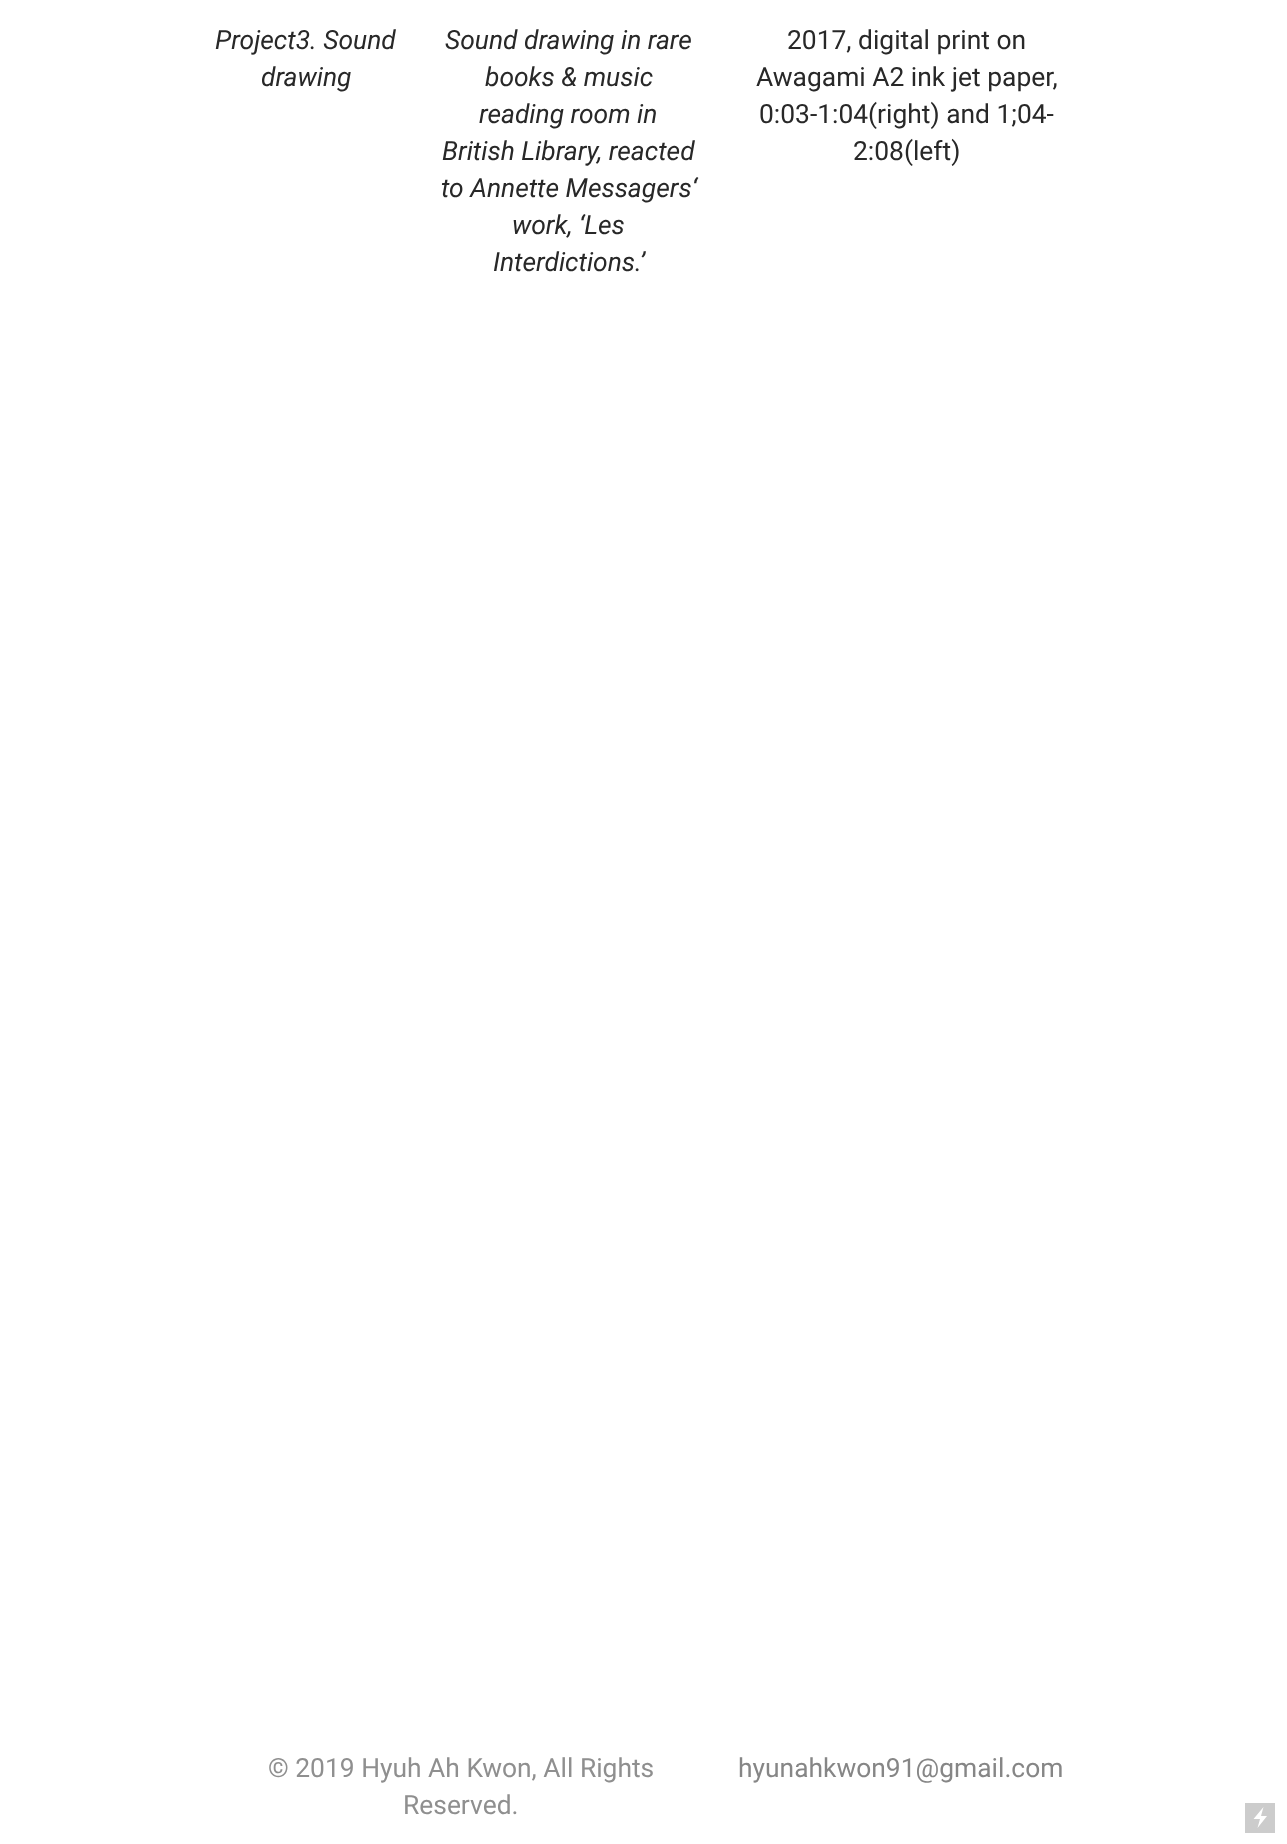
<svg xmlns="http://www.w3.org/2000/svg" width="1287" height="1844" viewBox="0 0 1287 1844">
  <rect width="100%" height="100%" fill="rgb(255,255,255)"/>
  <g font-family="Roboto" font-size="26.4" font-style="italic" fill="rgb(40,40,40)">
    <text x="215" y="49">Project3. Sound</text>
    <text x="261" y="86">drawing</text>
    <text x="445" y="49">Sound drawing in rare</text>
    <text x="485" y="86">books &amp; music</text>
    <text x="479" y="123">reading room in</text>
    <text x="442" y="160">British Library, reacted</text>
    <text x="441" y="197">to Annette Messagers‘</text>
    <text x="512" y="234">work, ‘Les</text>
    <text x="493" y="271">Interdictions.’</text>
  </g>
  <g font-family="Roboto" font-size="26.4" fill="rgb(40,40,40)">
    <text x="787" y="49">2017, digital print on</text>
    <text x="756" y="86">Awagami A2 ink jet paper,</text>
    <text x="759" y="123">0:03-1:04(right) and 1;04-</text>
    <text x="853" y="160">2:08(left)</text>
  </g>
  <g font-family="Roboto" font-size="26.4" fill="rgb(143,143,143)">
    <text x="268" y="1777">© 2019 Hyuh Ah Kwon, All Rights</text>
    <text x="403" y="1814">Reserved.</text>
  </g>
  <text x="738" y="1777" font-family="Roboto" font-size="26.4" fill="rgb(134,134,134)">hyunahkwon91@gmail.com</text>
  <rect x="1245" y="1803" width="30" height="30" fill="rgb(204,204,204)"/>
  <path d="M1267 1816H1261L1263.5 1807L1253.5 1819H1260L1257.5 1828Z" fill="rgb(255,255,255)"/>
</svg>
